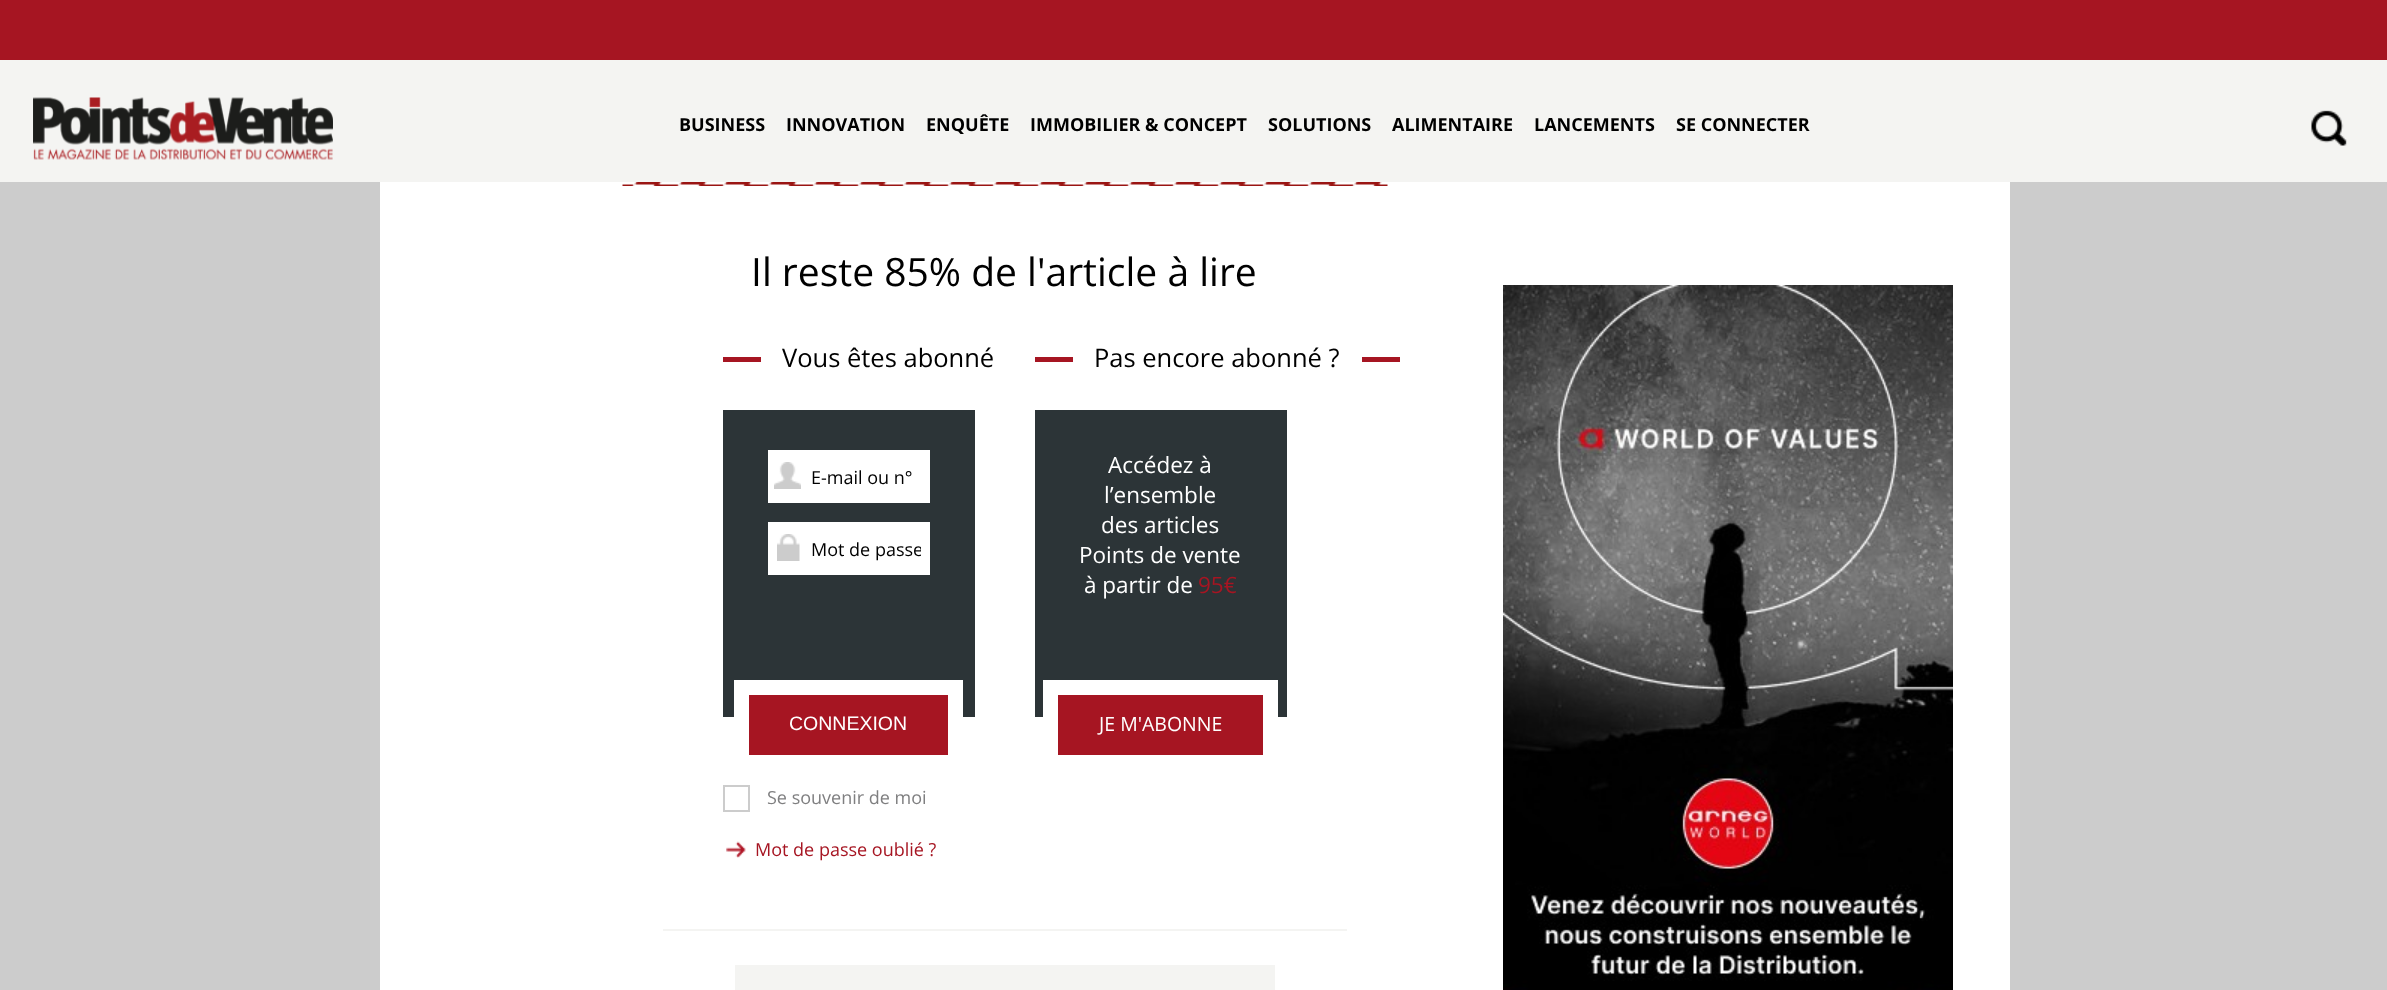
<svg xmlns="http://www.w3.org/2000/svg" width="2387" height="990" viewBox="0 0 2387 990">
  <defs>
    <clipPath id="clip1"><rect x="812" y="537" width="109" height="26"/></clipPath>
  </defs>
  <rect width="100%" height="100%" fill="rgb(204,204,204)"/>
  <rect x="0" y="0" width="2387" height="60" fill="rgb(166,21,34)"/>
  <rect x="0" y="60" width="2387" height="122" fill="rgb(244,244,242)"/>
  <image x="33" y="97" width="300" height="63" href="pic1.png"/>
  <g font-family="Open Sans" font-size="18" font-weight="bold" fill="rgb(0,0,0)">
    <text x="679" y="131">BUSINESS</text>
    <text x="786" y="131">INNOVATION</text>
    <text x="926" y="131">ENQUÊTE</text>
    <text x="1030" y="131">IMMOBILIER &amp; CONCEPT</text>
    <text x="1268" y="131">SOLUTIONS</text>
    <text x="1392" y="131">ALIMENTAIRE</text>
    <text x="1534" y="131">LANCEMENTS</text>
    <text x="1676" y="131">SE CONNECTER</text>
  </g>
  <image x="2311" y="110" width="36" height="36" href="pic2.png"/>
  <rect x="380" y="182" width="1630" height="808" fill="rgb(255,255,255)"/>
  <image x="622" y="182" width="766" height="4" href="pic3.png"/>
  <text x="751" y="286" font-family="Open Sans" font-size="39" fill="rgb(0,0,0)">Il reste 85% de l'article à lire</text>
  <rect x="723" y="357" width="38" height="5" fill="rgb(166,21,34)"/>
  <text x="782" y="367" font-family="Open Sans" font-size="25.5" fill="rgb(0,0,0)">Vous êtes abonné</text>
  <rect x="723" y="410" width="252" height="307" fill="rgb(44,52,55)"/>
  <rect x="768" y="450" width="162" height="53" fill="rgb(255,255,255)"/>
  <image x="774" y="462" width="27" height="27" href="pic4.png"/>
  <text x="811" y="484" font-family="Open Sans" font-size="18" fill="rgb(0,0,0)">E-mail ou n°</text>
  <rect x="768" y="522" width="162" height="53" fill="rgb(255,255,255)"/>
  <image x="777" y="534" width="23" height="27" href="pic5.png"/>
  <g clip-path="url(#clip1)">
    <text x="811" y="556" font-family="Open Sans" font-size="18" fill="rgb(0,0,0)">Mot de passe</text>
  </g>
  <rect x="741.5" y="687.5" width="214" height="75" fill="rgb(166,21,34)" stroke="rgb(255,255,255)" stroke-width="15"/>
  <text x="789" y="730" font-family="Liberation Sans" font-size="19.5" fill="rgb(255,255,255)">CONNEXION</text>
  <rect x="724" y="786" width="25" height="25" fill="none" stroke="rgb(204,204,204)" stroke-width="2"/>
  <text x="767" y="804" font-family="Open Sans" font-size="18" fill="rgb(127,127,128)">Se souvenir de moi</text>
  <image x="726" y="841" width="20" height="17" href="pic6.png"/>
  <text x="755" y="856" font-family="Open Sans" font-size="18" fill="rgb(166,21,34)">Mot de passe oublié ?</text>
  <rect x="1035" y="357" width="38" height="5" fill="rgb(166,21,34)"/>
  <text x="1094" y="367" font-family="Open Sans" font-size="25.5" fill="rgb(0,0,0)">Pas encore abonné ?</text>
  <rect x="1362" y="357" width="38" height="5" fill="rgb(166,21,34)"/>
  <rect x="1035" y="410" width="252" height="307" fill="rgb(44,52,55)"/>
  <g font-family="Open Sans" font-size="22.5" fill="rgb(255,255,255)">
    <text x="1108" y="473">Accédez à</text>
    <text x="1104" y="503">l’ensemble</text>
    <text x="1101" y="533">des articles</text>
    <text x="1079" y="563">Points de vente</text>
    <text x="1084" y="593">à partir de</text>
  </g>
  <text x="1198" y="593" font-family="Open Sans" font-size="22.5" fill="rgb(166,21,34)">95€</text>
  <rect x="1050.5" y="687.5" width="220" height="75" fill="rgb(166,21,34)" stroke="rgb(255,255,255)" stroke-width="15"/>
  <text x="1099" y="731" font-family="Open Sans" font-size="19.5" fill="rgb(255,255,255)">JE M'ABONNE</text>
  <rect x="663" y="929" width="684" height="2" fill="rgb(244,244,242)"/>
  <rect x="735" y="965" width="540" height="25" fill="rgb(244,244,242)"/>
  <image x="1503" y="285" width="450" height="705" href="pic7.png"/>
</svg>
